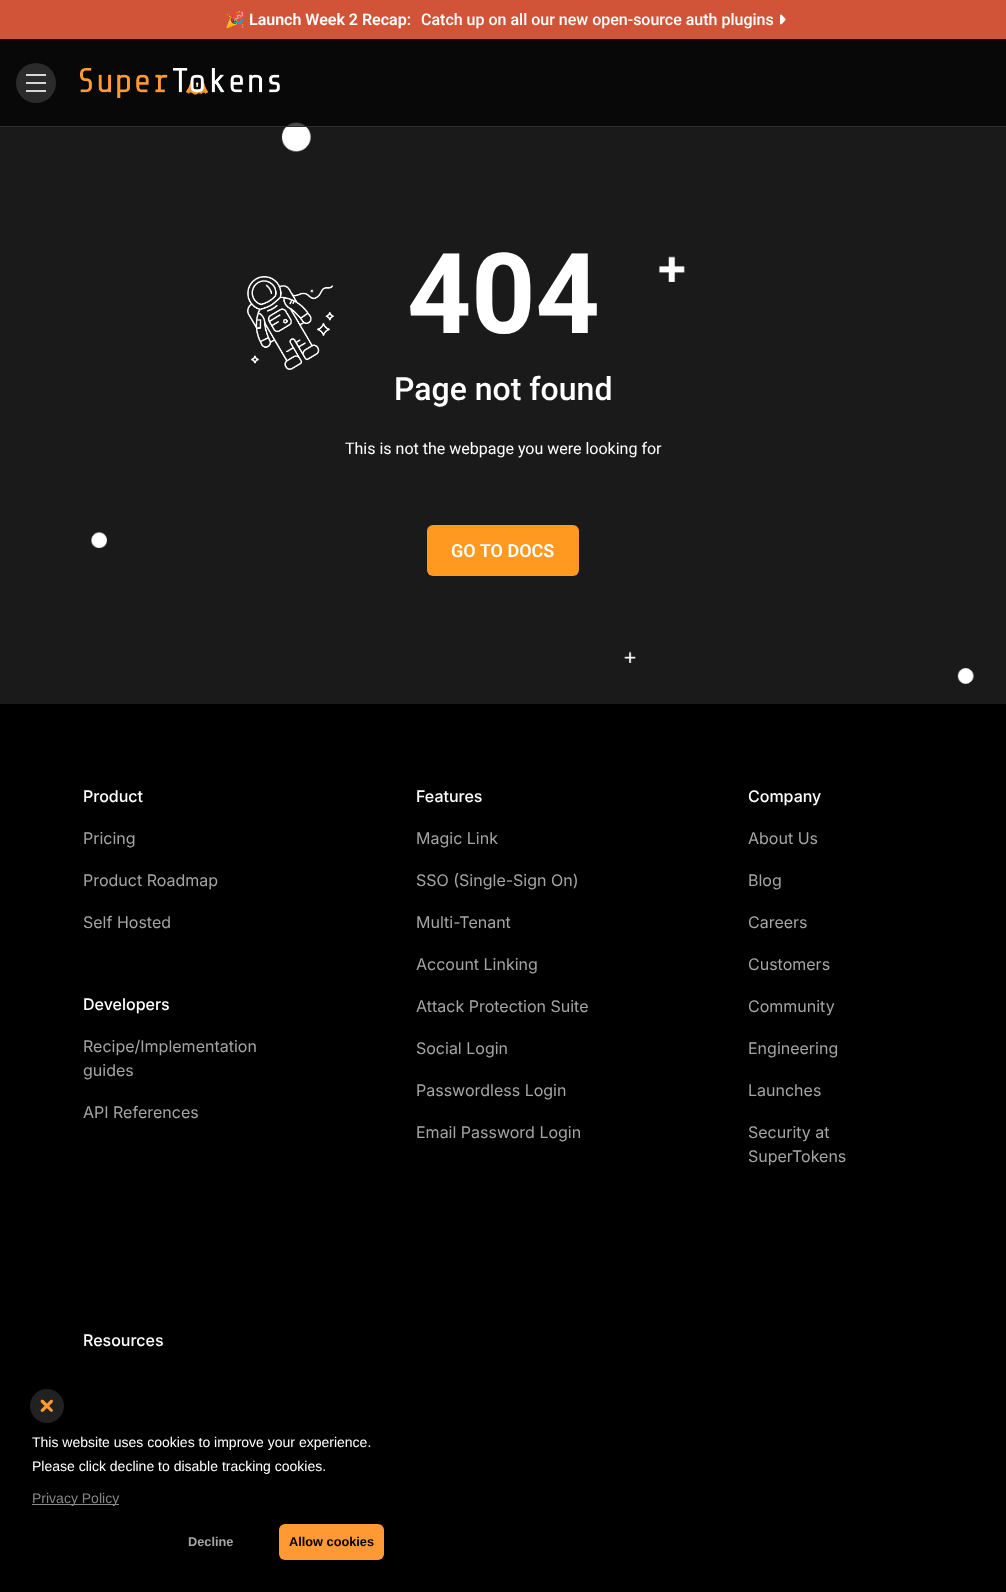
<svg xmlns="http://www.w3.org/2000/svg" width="1006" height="1592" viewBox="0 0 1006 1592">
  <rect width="100%" height="100%" fill="rgb(26,26,26)"/>
  <rect x="0" y="0" width="1006" height="39" fill="rgb(209,84,57)"/>
  <text x="225" y="25" font-family="Noto Color Emoji" font-size="16" fill="rgb(255,255,255)">🎉</text>
  <text x="249" y="25" font-family="Roboto" font-size="16" font-weight="600" fill="rgb(255,255,255)">Launch Week 2 Recap:</text>
  <text x="421" y="25" font-family="Roboto" font-size="16" font-weight="500" fill="rgb(255,255,255)">Catch up on all our new open-source auth plugins</text>
  <image x="780" y="14" width="6" height="11" href="pic1.png"/>
  <image x="91" y="122" width="883" height="562" href="pic3.png"/>
  <rect x="0" y="39" width="1006" height="87" fill="rgba(1,1,1,0.7)"/>
  <rect x="0" y="126" width="1006" height="1" fill="rgb(47,47,47)"/>
  <circle cx="36" cy="83" r="20" fill="rgb(43,43,43)"/>
  <rect x="26" y="74" width="20" height="2" fill="rgb(214,214,214)"/>
  <rect x="26" y="82" width="20" height="2" fill="rgb(214,214,214)"/>
  <rect x="26" y="90" width="20" height="2" fill="rgb(214,214,214)"/>
  <image x="80" y="68" width="200" height="30" href="pic2.png"/>
  <image x="247" y="276" width="87" height="94" href="pic4.png"/>
  <text x="407" y="333" font-family="Roboto" font-size="112" font-weight="bold" fill="rgb(255,255,255)">404</text>
  <text x="394" y="400" font-family="Roboto" font-size="32" font-weight="500" fill="rgb(255,255,255)">Page not found</text>
  <text x="345" y="454" font-family="Roboto" font-size="16" fill="rgb(255,255,255)">This is not the webpage you were looking for</text>
  <rect x="427" y="525" width="152" height="51" rx="6" fill="rgb(255,153,31)"/>
  <text x="451" y="557" font-family="Roboto" font-size="18" font-weight="600" fill="rgb(255,255,255)">GO TO DOCS</text>
  <rect x="0" y="704" width="1006" height="888" fill="rgb(0,0,0)"/>
  <text x="83" y="802" font-family="Inter" font-size="16" font-weight="500" fill="rgb(255,255,255)">Product</text>
  <g font-family="Inter" font-size="16" fill="rgb(165,165,165)">
    <text x="83" y="844">Pricing</text>
    <text x="83" y="886">Product Roadmap</text>
    <text x="83" y="928">Self Hosted</text>
  </g>
  <text x="83" y="1010" font-family="Inter" font-size="16" font-weight="500" fill="rgb(255,255,255)">Developers</text>
  <g font-family="Inter" font-size="16" fill="rgb(165,165,165)">
    <text>
      <tspan x="83" y="1052">Recipe/Implementation</tspan>
      <tspan x="83" y="1076">guides</tspan>
    </text>
    <text x="83" y="1118">API References</text>
  </g>
  <text x="416" y="802" font-family="Inter" font-size="16" font-weight="500" fill="rgb(255,255,255)">Features</text>
  <g font-family="Inter" font-size="16" fill="rgb(165,165,165)">
    <text x="416" y="844">Magic Link</text>
    <text x="416" y="886">SSO (Single-Sign On)</text>
    <text x="416" y="928">Multi-Tenant</text>
    <text x="416" y="970">Account Linking</text>
    <text x="416" y="1012">Attack Protection Suite</text>
    <text x="416" y="1054">Social Login</text>
    <text x="416" y="1096">Passwordless Login</text>
    <text x="416" y="1138">Email Password Login</text>
  </g>
  <text x="748" y="802" font-family="Inter" font-size="16" font-weight="500" fill="rgb(255,255,255)">Company</text>
  <g font-family="Inter" font-size="16" fill="rgb(165,165,165)">
    <text x="748" y="844">About Us</text>
    <text x="748" y="886">Blog</text>
    <text x="748" y="928">Careers</text>
    <text x="748" y="970">Customers</text>
    <text x="748" y="1012">Community</text>
    <text x="748" y="1054">Engineering</text>
    <text x="748" y="1096">Launches</text>
    <text>
      <tspan x="748" y="1138">Security at</tspan>
      <tspan x="748" y="1162">SuperTokens</tspan>
    </text>
  </g>
  <text x="83" y="1346" font-family="Inter" font-size="16" font-weight="500" fill="rgb(255,255,255)">Resources</text>
  <circle cx="47" cy="1406" r="17" fill="rgb(33,33,33)"/>
  <path d="M52.5 1400C53 1401 53 1401.5 52.5 1402.5L43.5 1411.5C42.5 1412 41.5 1412 41 1411.5C40.5 1411 40.5 1410 41 1409.5L50.5 1400C51 1399.5 52 1399.5 52.5 1400Z" fill="rgb(255,153,51)"/>
  <path d="M41 1400C41.5 1399.5 42.5 1399.5 43.5 1400L52.5 1409.5C53 1410 53 1411 52.5 1411.5C52 1412 51 1412 50.5 1411.5L41 1402.5C40.5 1401.5 40.5 1401 41 1400Z" fill="rgb(255,153,51)"/>
  <g font-family="Liberation Sans" font-size="14" fill="rgb(255,255,255)">
    <text>
      <tspan x="32" y="1447">This website uses cookies to improve your experience.</tspan>
      <tspan x="32" y="1471">Please click decline to disable tracking cookies.</tspan>
    </text>
  </g>
  <rect x="32" y="1504" width="87" height="1" fill="rgb(136,136,136)"/>
  <text x="32" y="1503" font-family="Liberation Sans" font-size="14" fill="rgb(136,136,136)">Privacy Policy</text>
  <text x="188" y="1546" font-family="Liberation Sans" font-size="12.75" font-weight="bold" fill="rgb(165,165,165)">Decline</text>
  <rect x="279" y="1524" width="105" height="36" rx="6" fill="rgb(255,153,51)"/>
  <text x="289" y="1546" font-family="Liberation Sans" font-size="12.75" font-weight="bold" fill="rgb(0,0,0)">Allow cookies</text>
</svg>
